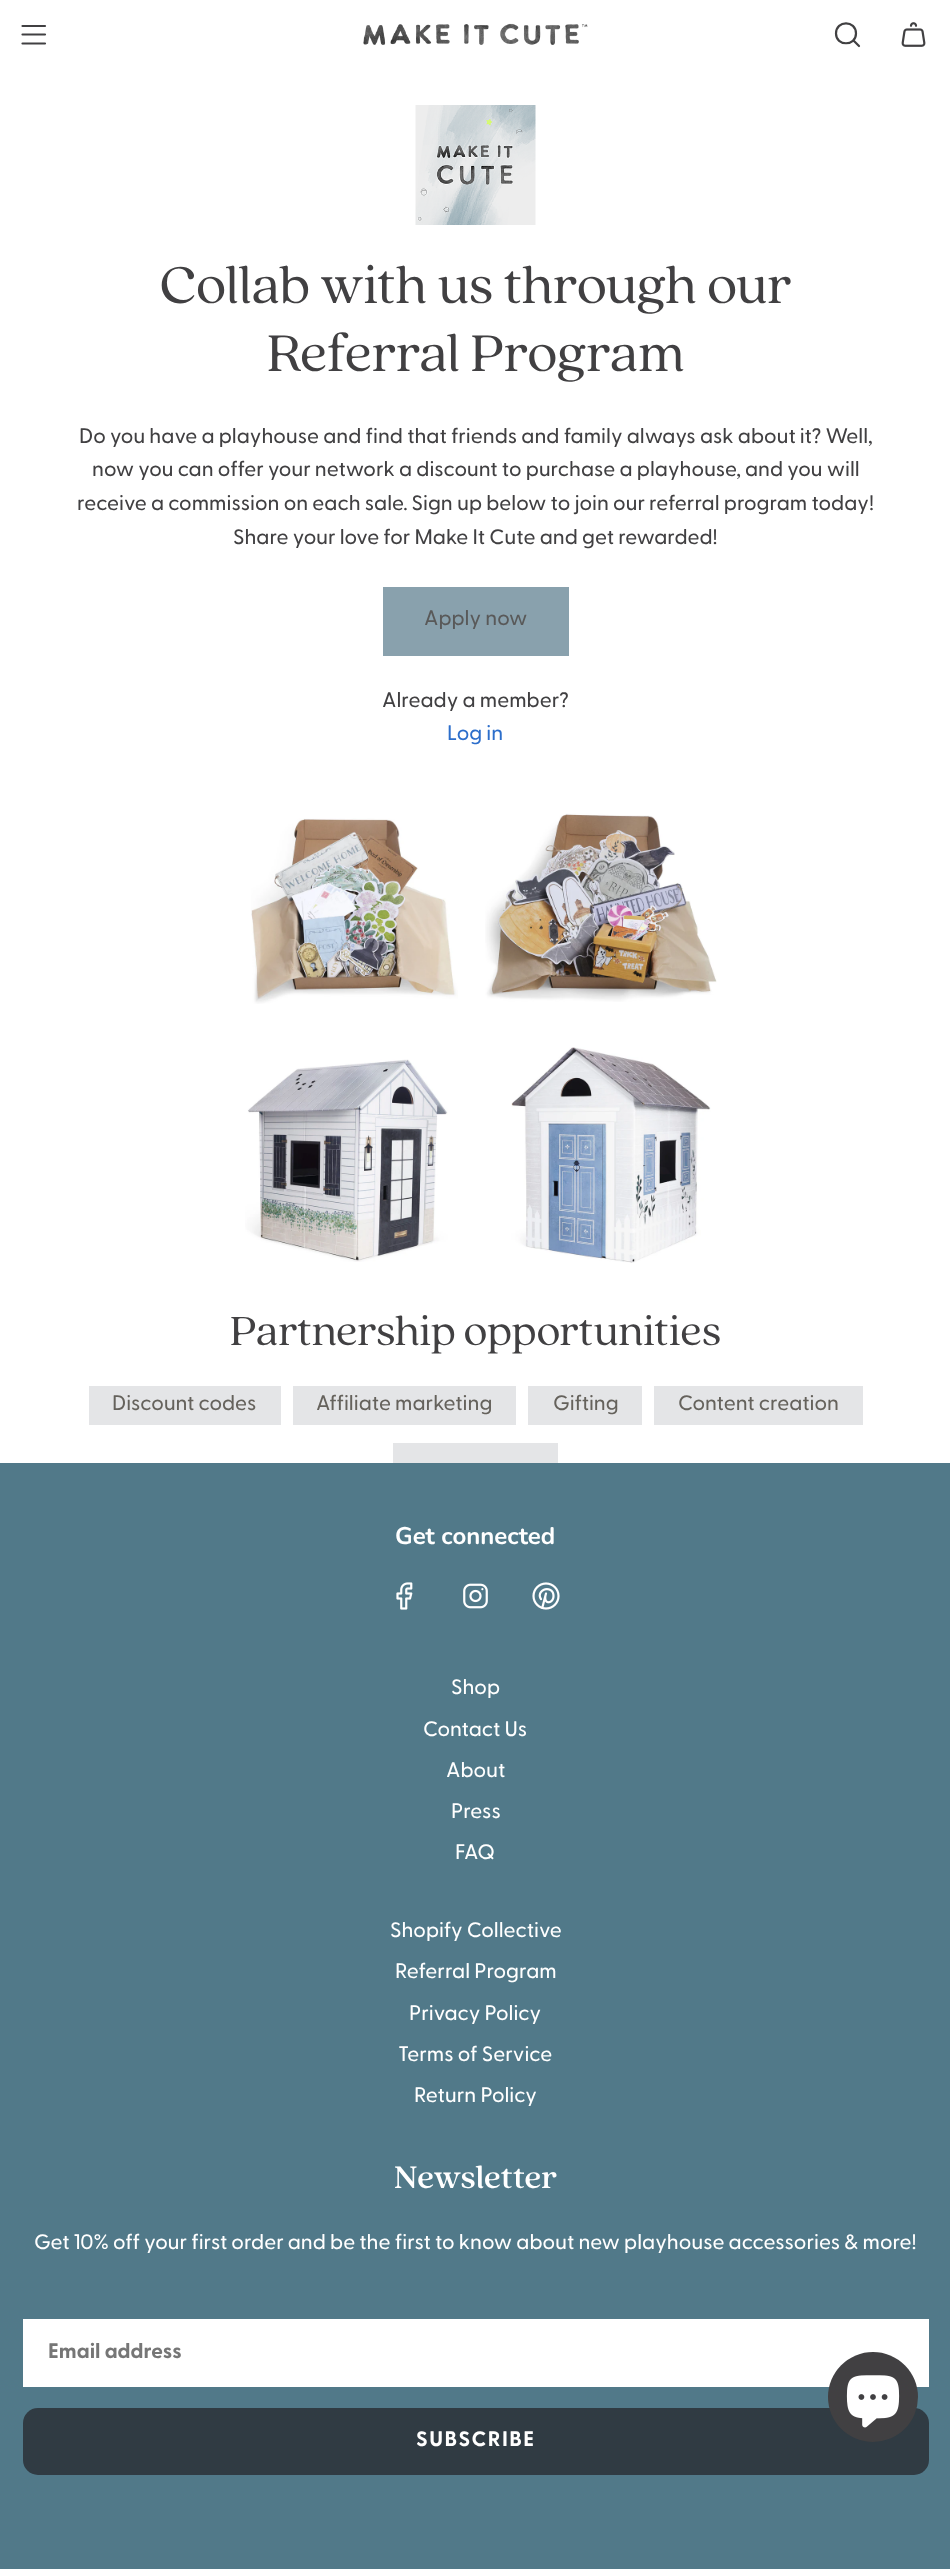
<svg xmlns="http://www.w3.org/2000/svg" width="950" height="2569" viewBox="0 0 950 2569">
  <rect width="100%" height="100%" fill="rgb(255,255,255)"/>
  <path d="M22.5 26H45M22.5 34.5H45M22.5 43.5H45" fill="none" stroke="rgb(65,64,66)" stroke-width="2.2" stroke-linecap="round" stroke-linejoin="round"/>
  <image x="363" y="23" width="225" height="22" href="pic1.png"/>
  <path d="M854 41L859 46M836 33.5C836 46.5 856 46.5 856 33.5C856 20 836 20 836 33.5Z" fill="none" stroke="rgb(65,64,66)" stroke-width="2.2" stroke-linecap="round" stroke-linejoin="round"/>
  <image x="901" y="22" width="25" height="25" href="pic2.png"/>
  <image x="415" y="105" width="121" height="120" href="pic3.png"/>
  <g font-family="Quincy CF" font-size="57" fill="rgb(65,64,66)">
    <text x="160" y="303">Collab with us through our</text>
    <text x="267" y="371">Referral Program</text>
  </g>
  <g font-family="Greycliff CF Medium" font-size="21" font-weight="500" fill="rgb(65,64,66)">
    <text x="79" y="443">Do you have a playhouse and find that friends and family always ask about it? Well,</text>
    <text x="92" y="476">now you can offer your network a discount to purchase a playhouse, and you will</text>
    <text x="77" y="510">receive a commission on each sale. Sign up below to join our referral program today!</text>
    <text x="233" y="544">Share your love for Make It Cute and get rewarded!</text>
  </g>
  <rect x="383" y="587" width="186" height="69" fill="rgb(137,161,173)"/>
  <text x="424" y="625" font-family="Greycliff CF Medium" font-size="21" font-weight="500" fill="rgb(89,89,89)">Apply now</text>
  <text x="382" y="707" font-family="Greycliff CF Medium" font-size="21" font-weight="500" fill="rgb(65,64,66)">Already a member?</text>
  <text x="447" y="740" font-family="Greycliff CF Medium" font-size="21" font-weight="500" fill="rgb(44,110,203)">Log in</text>
  <image x="251" y="818" width="207" height="186" href="pic4.png"/>
  <image x="485" y="813" width="232" height="189" href="pic5.png"/>
  <image x="245" y="1059" width="203" height="203" href="pic6.png"/>
  <image x="511" y="1047" width="200" height="216" href="pic7.png"/>
  <text x="230" y="1345" font-family="Quincy CF" font-size="45" fill="rgb(65,64,66)">Partnership opportunities</text>
  <rect x="89" y="1386" width="192" height="39" fill="rgb(228,229,231)"/>
  <text x="112" y="1410" font-family="Greycliff CF Medium" font-size="21" font-weight="500" fill="rgb(101,98,92)">Discount codes</text>
  <rect x="293" y="1386" width="223" height="39" fill="rgb(228,229,231)"/>
  <text x="316" y="1410" font-family="Greycliff CF Medium" font-size="21" font-weight="500" fill="rgb(101,98,92)">Affiliate marketing</text>
  <rect x="528" y="1386" width="114" height="39" fill="rgb(228,229,231)"/>
  <text x="553" y="1410" font-family="Greycliff CF Medium" font-size="21" font-weight="500" fill="rgb(101,98,92)">Gifting</text>
  <rect x="654" y="1386" width="209" height="39" fill="rgb(228,229,231)"/>
  <text x="678" y="1410" font-family="Greycliff CF Medium" font-size="21" font-weight="500" fill="rgb(101,98,92)">Content creation</text>
  <rect x="393" y="1443" width="165" height="20" fill="rgb(228,229,231)"/>
  <rect x="0" y="1463" width="950" height="1106" fill="rgb(81,121,137)"/>
  <text x="395" y="1544" font-family="Nunito" font-size="24" font-weight="bold" fill="rgb(255,255,255)">Get connected</text>
  <image x="396" y="1582" width="17" height="28" href="pic8.png"/>
  <image x="463" y="1583" width="25" height="26" href="pic9.png"/>
  <image x="532" y="1582" width="28" height="28" href="pic10.png"/>
  <g font-family="Greycliff CF Medium" font-size="21" font-weight="500" fill="rgb(255,255,255)">
    <text x="451" y="1694">Shop</text>
    <text x="423" y="1736">Contact Us</text>
    <text x="446" y="1777">About</text>
    <text x="451" y="1818">Press</text>
    <text x="455" y="1859">FAQ</text>
    <text x="390" y="1937">Shopify Collective</text>
    <text x="395" y="1978">Referral Program</text>
    <text x="409" y="2020">Privacy Policy</text>
    <text x="398" y="2061">Terms of Service</text>
    <text x="414" y="2102">Return Policy</text>
  </g>
  <text x="394" y="2188" font-family="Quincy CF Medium" font-size="34.5" font-weight="500" fill="rgb(255,255,255)">Newsletter</text>
  <text x="34" y="2249" font-family="Greycliff CF Medium" font-size="21" font-weight="500" fill="rgb(255,255,255)">Get 10% off your first order and be the first to know about new playhouse accessories &amp; more!</text>
  <rect x="23" y="2319" width="906" height="68" fill="rgb(255,255,255)"/>
  <text x="48" y="2358" font-family="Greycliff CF" font-size="21" font-weight="bold" fill="rgb(118,118,118)">Email address</text>
  <rect x="23" y="2408" width="906" height="67" rx="15" fill="rgb(48,59,67)"/>
  <text x="416" y="2446" font-family="Greycliff CF" font-size="21" font-weight="bold" letter-spacing="1.5" fill="rgb(255,255,255)">SUBSCRIBE</text>
  <circle cx="873" cy="2397" r="45" fill="rgb(65,64,66)"/>
  <image x="846" y="2375" width="54" height="53" href="pic11.png"/>
</svg>
